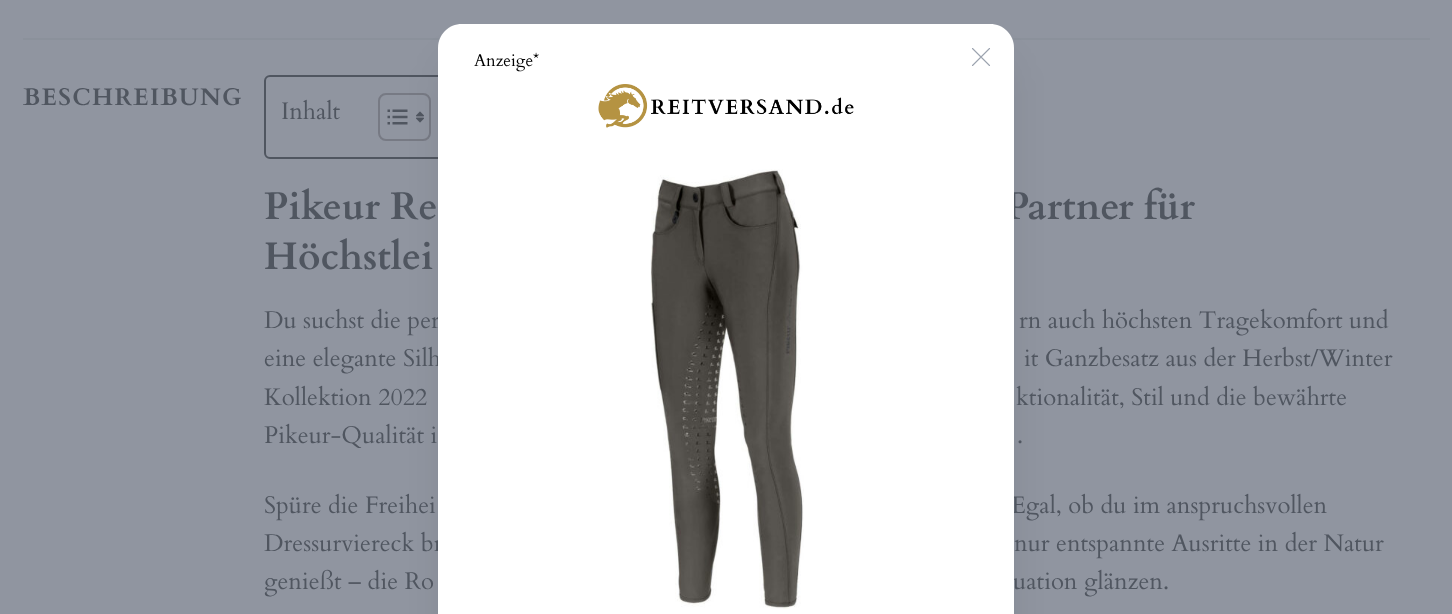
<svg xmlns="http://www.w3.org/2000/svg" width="1452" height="614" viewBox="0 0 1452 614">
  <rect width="100%" height="100%" fill="rgb(144,149,160)"/>
  <rect x="23" y="38" width="1407" height="2" fill="rgb(139,145,155)"/>
  <rect x="265" y="76" width="189" height="82" rx="5" fill="none" stroke="rgb(80,86,96)" stroke-width="2"/>
  <rect x="379" y="94" width="51" height="46" rx="7" fill="none" stroke="rgb(119,122,132)" stroke-width="2"/>
  <image x="387" y="109" width="21" height="16" href="pic3.png"/>
  <image x="416" y="111" width="8" height="12" href="pic4.png"/>
  <rect x="446" y="62" width="561" height="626" rx="17" fill="rgba(0,0,0,0.1)" filter="blur(19px)"/>
  <text x="1005" y="219" font-family="Cardo" font-size="38.5" font-weight="bold" fill="rgb(80,86,96)">Partner für</text>
  <g font-family="Cardo" font-size="24" fill="rgb(80,86,96)">
    <text>
      <tspan x="264" y="328">Du suchst die per</tspan>
      <tspan x="264" y="366">eine elegante Silh</tspan>
    </text>
    <text x="1011" y="513">Egal, ob du im anspruchsvollen</text>
    <text x="264" y="551">Dressurviereck br</text>
    <text x="1013" y="589">uation glänzen.</text>
  </g>
  <path d="M462 24H990C1003.5 24 1014 34.5 1014 48V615H438V48C438 34.5 448.5 24 462 24Z" fill="rgb(255,255,255)"/>
  <text x="474" y="66" font-family="Cardo" font-size="17" fill="rgb(0,0,0)">Anzeige*</text>
  <path d="M972.5 65.5L989.5 48.5M972.5 48.5L989.5 65.5" fill="none" stroke="rgb(156,163,175)" stroke-width="1.1" stroke-linecap="round" stroke-linejoin="round"/>
  <image x="598" y="84" width="256" height="44" href="pic1.png"/>
  <image x="650" y="169" width="154" height="440" href="pic2.png"/>
  <text x="23" y="105" font-family="Cardo" font-size="24" font-weight="bold" letter-spacing="1.25" fill="rgb(80,86,96)">BESCHREIBUNG</text>
  <text x="281" y="119" font-family="Cardo" font-size="24" fill="rgb(80,86,96)">Inhalt</text>
  <g font-family="Cardo" font-size="38.5" font-weight="bold" fill="rgb(80,86,96)">
    <text>
      <tspan x="264" y="219">Pikeur Re</tspan>
      <tspan x="264" y="269">Höchstlei</tspan>
    </text>
  </g>
  <g font-family="Cardo" font-size="24" fill="rgb(80,86,96)">
    <text x="1019" y="328">rn auch höchsten Tragekomfort und</text>
    <text x="1024" y="366">it Ganzbesatz aus der Herbst/Winter</text>
    <text x="264" y="405">Kollektion 2022</text>
    <text x="1016" y="405">ktionalität, Stil und die bewährte</text>
    <text x="264" y="443">Pikeur-Qualität i</text>
    <text x="1017" y="443">.</text>
    <text x="264" y="513">Spüre die Freihei</text>
    <text x="1014" y="551">nur entspannte Ausritte in der Natur</text>
    <text x="264" y="589">genießt – die Ro</text>
  </g>
</svg>
